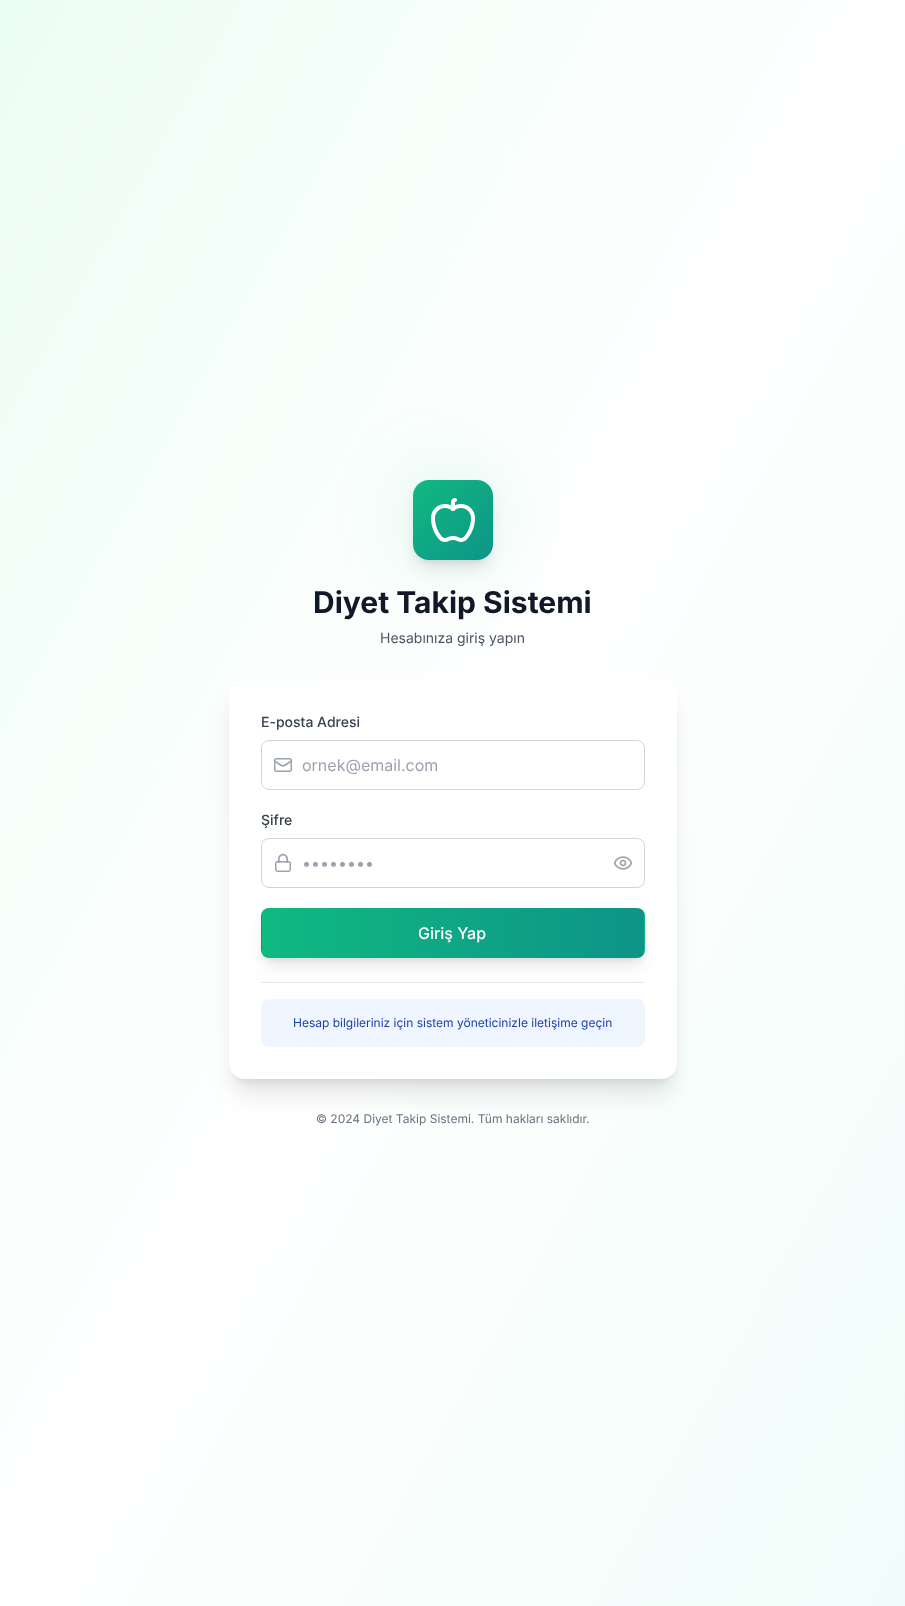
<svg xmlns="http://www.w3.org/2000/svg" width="905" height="1606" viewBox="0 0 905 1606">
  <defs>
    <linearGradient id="g1" gradientUnits="userSpaceOnUse" x1="-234" y1="416" x2="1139" y2="1190"><stop offset="0" stop-color="rgb(236,253,245)"/><stop offset="0.5" stop-color="rgb(255,255,255)"/><stop offset="1" stop-color="rgb(240,253,250)"/></linearGradient>
    <linearGradient id="g2" gradientUnits="userSpaceOnUse" x1="413" y1="480" x2="493" y2="560"><stop offset="0" stop-color="rgb(16,185,129)"/><stop offset="1" stop-color="rgb(13,148,136)"/></linearGradient>
    <clipPath id="clip1"><rect x="261" y="908" width="384" height="50" rx="8"/></clipPath>
    <linearGradient id="g3" gradientUnits="userSpaceOnUse" x1="-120" y1="933" x2="262" y2="933"><stop offset="0" stop-color="rgb(16,185,129)"/><stop offset="1" stop-color="rgb(13,148,136)"/></linearGradient>
    <linearGradient id="g4" gradientUnits="userSpaceOnUse" x1="262" y1="933" x2="644" y2="933"><stop offset="0" stop-color="rgb(16,185,129)"/><stop offset="1" stop-color="rgb(13,148,136)"/></linearGradient>
    <linearGradient id="g5" gradientUnits="userSpaceOnUse" x1="644" y1="933" x2="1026" y2="933"><stop offset="0" stop-color="rgb(16,185,129)"/><stop offset="1" stop-color="rgb(13,148,136)"/></linearGradient>
  </defs>
  <rect width="100%" height="100%" fill="rgb(255,255,255)"/>
  <rect x="0" y="0" width="905" height="1606" fill="url(#g1)"/>
  <rect x="235" y="694" width="436" height="387" rx="10" fill="rgba(0,0,0,0.1)" filter="blur(5px)"/>
  <rect x="234" y="705" width="438" height="389" rx="11" fill="rgba(0,0,0,0.1)" filter="blur(12.5px)"/>
  <rect x="229" y="680" width="448" height="399" rx="16" fill="rgb(255,255,255)"/>
  <rect x="413" y="480" width="80" height="80" rx="40" fill="rgba(16,185,129,0.2)" filter="blur(40px)"/>
  <rect x="417" y="488" width="72" height="72" rx="12" fill="rgba(0,0,0,0.1)" filter="blur(3px)"/>
  <rect x="416" y="493" width="74" height="74" rx="13" fill="rgba(0,0,0,0.1)" filter="blur(7.5px)"/>
  <rect x="413" y="480" width="80" height="80" rx="16" fill="url(#g2)"/>
  <image x="431" y="498" width="44" height="44" href="pic1.png"/>
  <text x="313" y="613" font-family="Inter" font-size="30" font-weight="bold" fill="rgb(17,24,39)">Diyet Takip Sistemi</text>
  <text x="380" y="643" font-family="Inter" font-size="14" fill="rgb(75,85,99)">Hesabınıza giriş yapın</text>
  <text x="261" y="727" font-family="Inter" font-size="14" font-weight="500" fill="rgb(55,65,81)">E-posta Adresi</text>
  <rect x="261.5" y="740.5" width="383" height="49" rx="7.5" fill="none" stroke="rgb(209,213,219)"/>
  <path d="M291.5 761C281 767.5 285 767.5 274.5 761" fill="none" stroke="rgb(156,163,175)" stroke-width="1.7" stroke-linecap="round" stroke-linejoin="round"/>
  <rect x="274.75" y="758.75" width="16.5" height="12.5" rx="1.75" fill="none" stroke="rgb(156,163,175)" stroke-width="1.5"/>
  <text x="302" y="771" font-family="Inter" font-size="16" fill="rgb(156,163,175)">ornek@email.com</text>
  <text x="261" y="825" font-family="Inter" font-size="14" font-weight="500" fill="rgb(55,65,81)">Şifre</text>
  <rect x="261.5" y="838.5" width="383" height="49" rx="7.5" fill="none" stroke="rgb(209,213,219)"/>
  <image x="275" y="853" width="16" height="19" href="pic2.png"/>
  <text x="302" y="869" font-family="Inter" font-size="16" fill="rgb(156,163,175)">••••••••</text>
  <image x="613" y="856" width="20" height="14" href="pic3.png"/>
  <rect x="265" y="916" width="376" height="42" rx="4" fill="rgba(0,0,0,0.1)" filter="blur(3px)"/>
  <rect x="264" y="921" width="378" height="44" rx="5" fill="rgba(0,0,0,0.1)" filter="blur(7.5px)"/>
  <g clip-path="url(#clip1)">
    <rect x="261" y="908" width="1" height="50" fill="url(#g3)"/>
    <rect x="262" y="908" width="382" height="50" fill="url(#g4)"/>
    <rect x="644" y="908" width="1" height="50" fill="url(#g5)"/>
  </g>
  <text x="418" y="939" font-family="Inter" font-size="16" font-weight="500" fill="rgb(255,255,255)">Giriş Yap</text>
  <rect x="261" y="982" width="384" height="1" fill="rgb(229,231,235)"/>
  <rect x="261" y="999" width="384" height="48" rx="8" fill="rgb(239,246,255)"/>
  <text x="293" y="1027" font-family="Inter" font-size="12" fill="rgb(30,64,175)">Hesap bilgileriniz için sistem yöneticinizle iletişime geçin</text>
  <text x="316" y="1123" font-family="Inter" font-size="12" fill="rgb(107,114,128)">© 2024 Diyet Takip Sistemi. Tüm hakları saklıdır.</text>
</svg>
